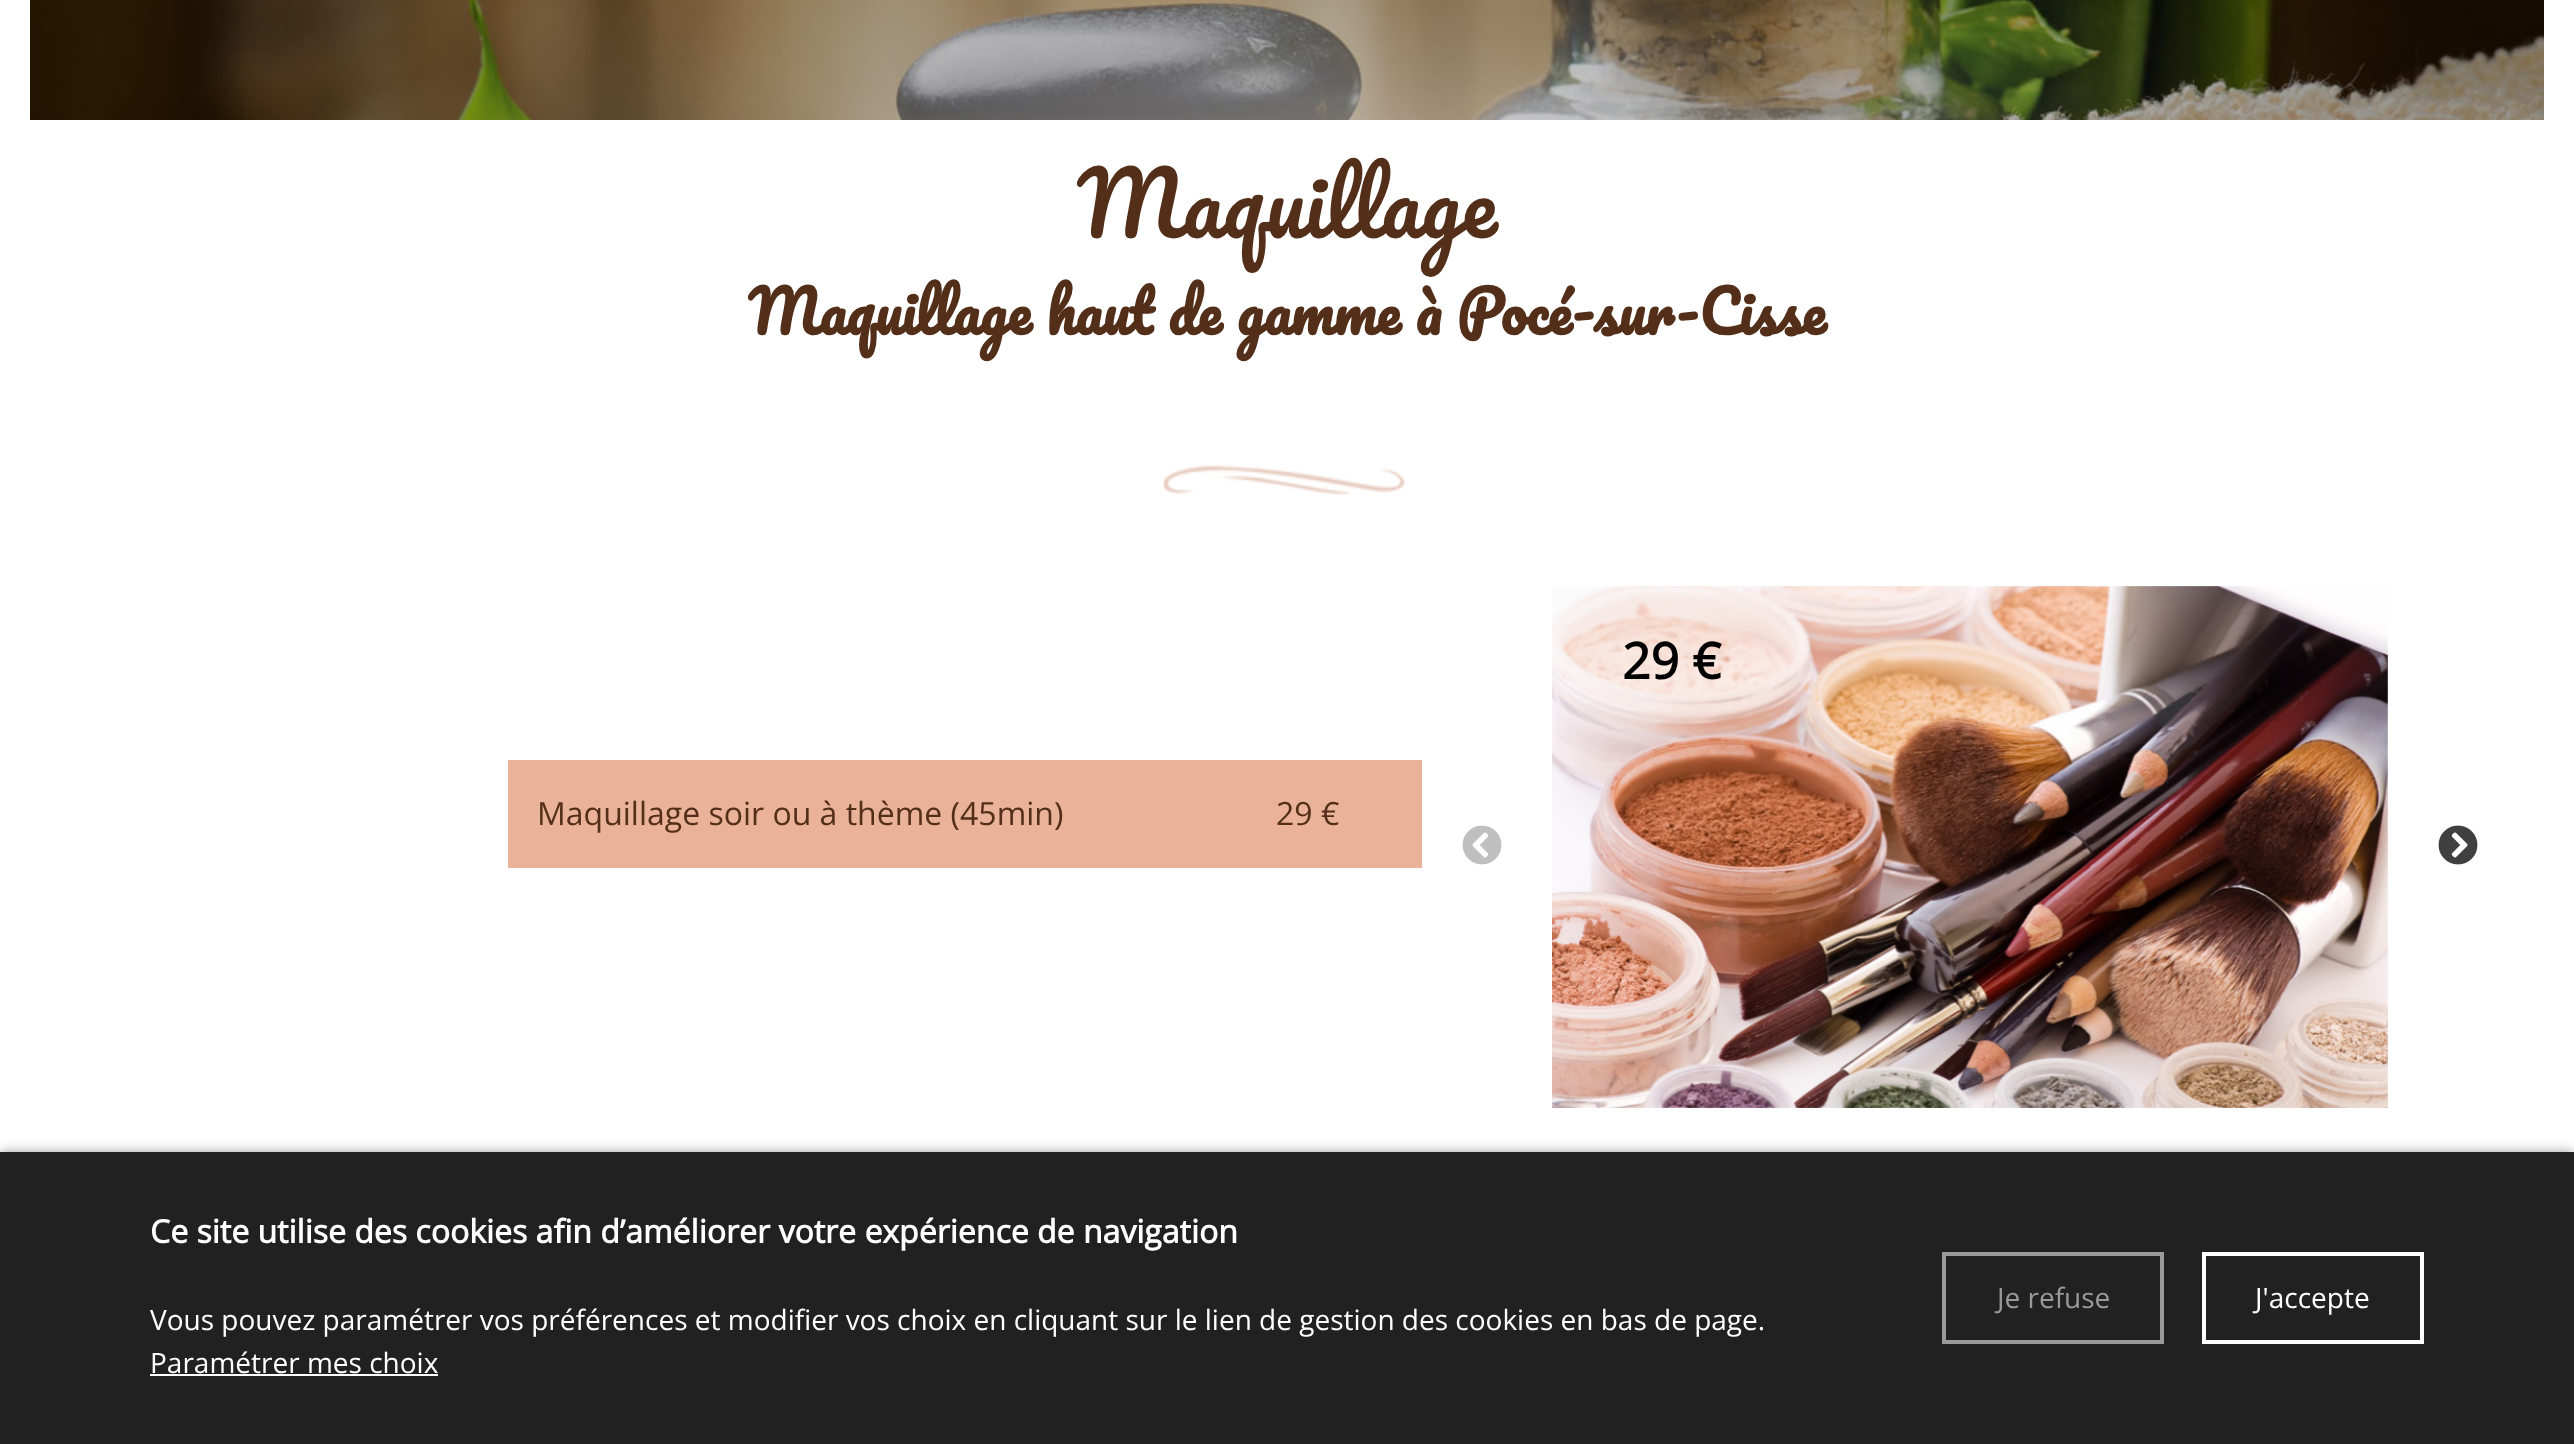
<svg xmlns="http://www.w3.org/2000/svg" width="2574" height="1444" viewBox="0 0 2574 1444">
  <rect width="100%" height="100%" fill="rgb(255,255,255)"/>
  <image x="30" y="0" width="2514" height="120" href="pic1.png"/>
  <text x="1077" y="238" font-family="Pacifico" font-size="85.5" fill="rgb(83,47,25)">Maquillage</text>
  <text x="748" y="335" font-family="Pacifico" font-size="57.6" font-weight="bold" fill="rgb(83,47,25)">Maquillage haut de gamme à Pocé-sur-Cisse</text>
  <image x="1163" y="465" width="242" height="30" href="pic2.png"/>
  <image x="1462" y="825" width="40" height="40" href="pic3.png"/>
  <image x="1552" y="586" width="836" height="522" href="pic4.png"/>
  <image x="2438" y="825" width="40" height="40" href="pic5.png"/>
  <text x="1622" y="679" font-family="Open Sans" font-size="50" font-weight="bold" fill="rgb(0,0,0)">29 €</text>
  <rect x="508" y="760" width="914" height="108" fill="rgb(234,178,152)"/>
  <g font-family="Open Sans" font-size="32" fill="rgb(83,47,25)">
    <text x="537" y="825">Maquillage soir ou à thème (45min)</text>
    <text x="1276" y="825">29 €</text>
  </g>
  <rect x="0" y="1152" width="2574" height="292" fill="rgba(0,0,0,0.4)" filter="blur(6px)"/>
  <rect x="0" y="1152" width="2574" height="292" fill="rgb(33,33,33)"/>
  <text x="150" y="1243" font-family="Open Sans" font-size="32" font-weight="bold" fill="rgb(255,255,255)">Ce site utilise des cookies afin d’améliorer votre expérience de navigation</text>
  <g font-family="Open Sans" font-size="28" fill="rgb(255,255,255)">
    <text>
      <tspan x="150" y="1330">Vous pouvez paramétrer vos préférences et modifier vos choix en cliquant sur le lien de gestion des cookies en bas de page.</tspan>
      <tspan x="150" y="1373">Paramétrer mes choix</tspan>
    </text>
  </g>
  <rect x="150" y="1374" width="288" height="2" fill="rgb(255,255,255)"/>
  <rect x="1944" y="1254" width="218" height="88" fill="none" stroke="rgb(153,153,153)" stroke-width="4"/>
  <text x="1997" y="1308" font-family="Open Sans" font-size="28" fill="rgb(153,153,153)">Je refuse</text>
  <rect x="2204" y="1254" width="218" height="88" fill="none" stroke="rgb(255,255,255)" stroke-width="4"/>
  <text x="2255" y="1308" font-family="Open Sans" font-size="28" fill="rgb(255,255,255)">J'accepte</text>
</svg>
